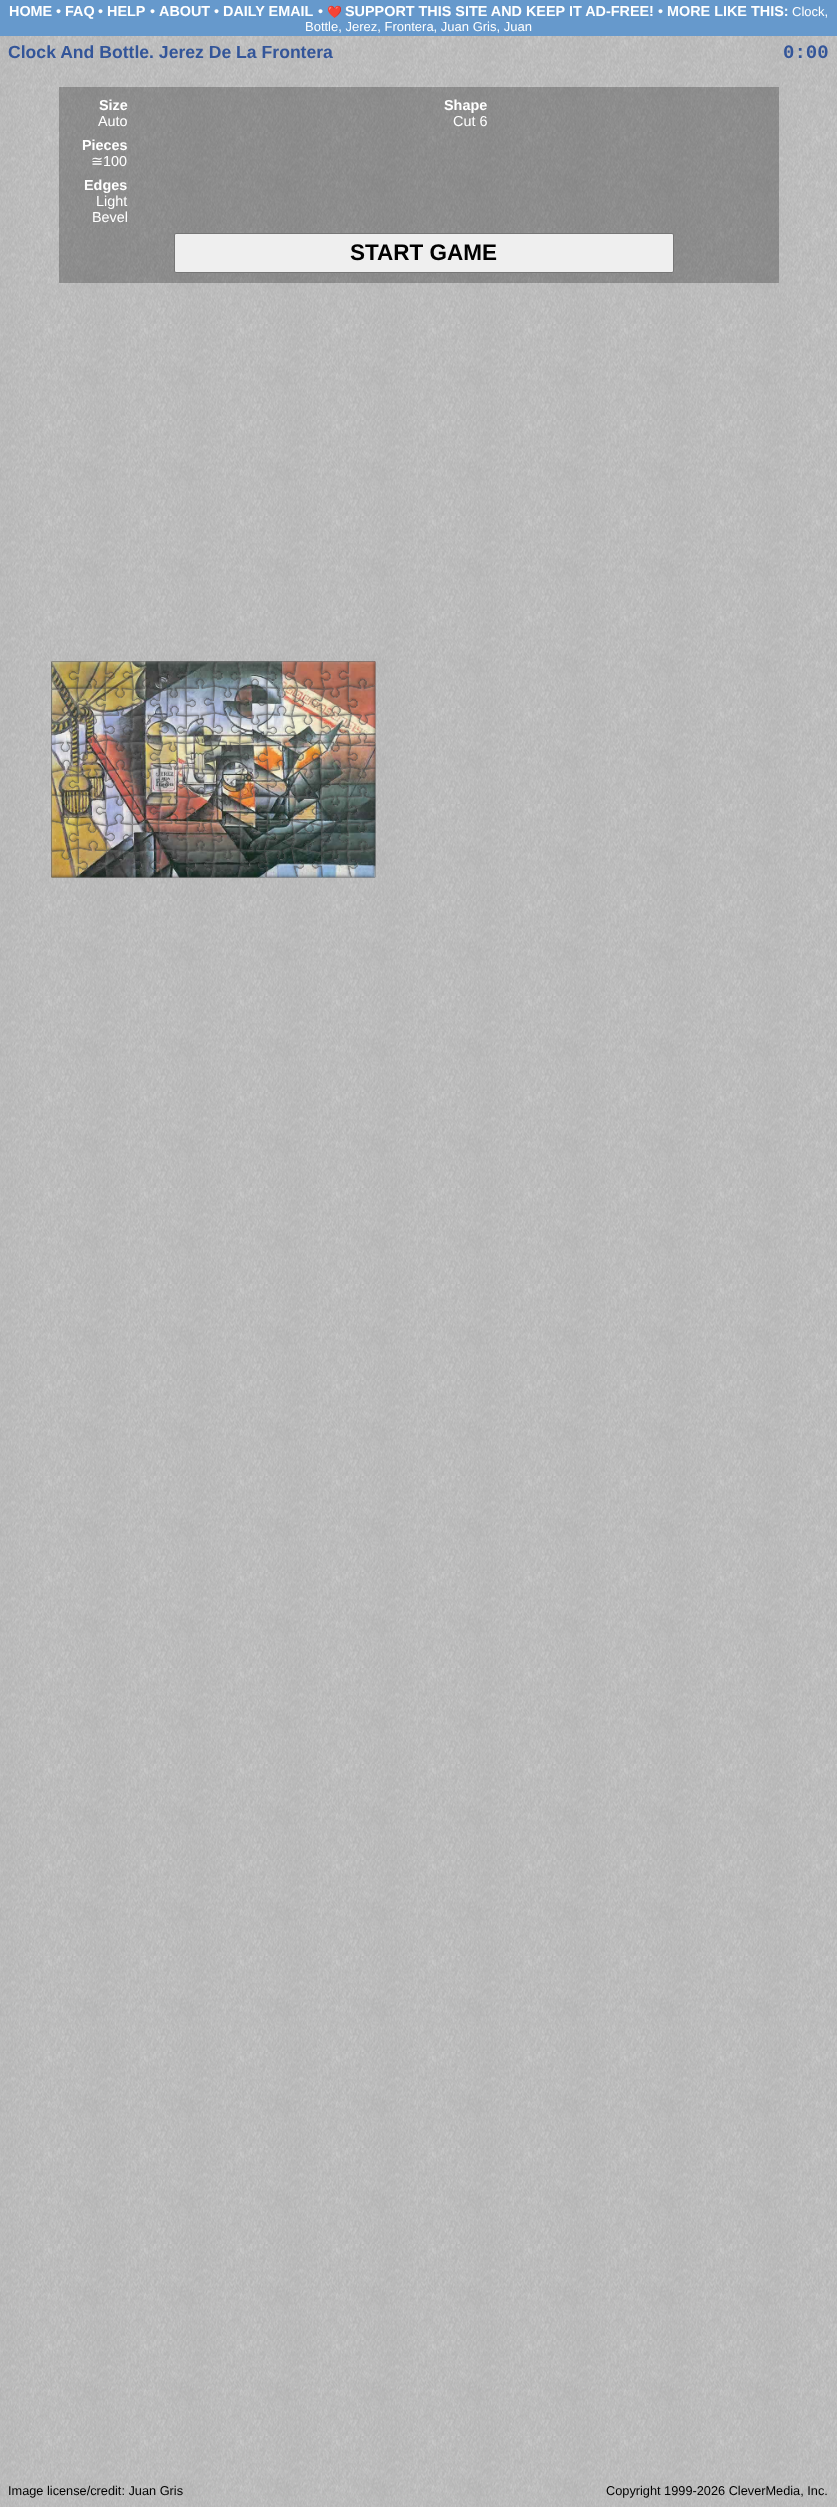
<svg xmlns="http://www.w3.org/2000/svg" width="837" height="2507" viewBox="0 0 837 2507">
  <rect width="100%" height="100%" fill="rgb(102,153,204)"/>
  <text x="9" y="16" font-family="Liberation Sans" font-size="14.4" font-weight="bold" fill="rgb(255,255,255)">HOME</text>
  <text x="56" y="16" font-family="Liberation Sans" font-size="14.4" fill="rgb(255,255,255)">•</text>
  <text x="65" y="16" font-family="Liberation Sans" font-size="14.4" font-weight="bold" fill="rgb(255,255,255)">FAQ</text>
  <text x="98" y="16" font-family="Liberation Sans" font-size="14.4" fill="rgb(255,255,255)">•</text>
  <text x="107" y="16" font-family="Liberation Sans" font-size="14.4" font-weight="bold" fill="rgb(255,255,255)">HELP</text>
  <text x="150" y="16" font-family="Liberation Sans" font-size="14.4" fill="rgb(255,255,255)">•</text>
  <text x="159" y="16" font-family="Liberation Sans" font-size="14.4" font-weight="bold" fill="rgb(255,255,255)">ABOUT</text>
  <text x="214" y="16" font-family="Liberation Sans" font-size="14.4" fill="rgb(255,255,255)">•</text>
  <text x="223" y="16" font-family="Liberation Sans" font-size="14.4" font-weight="bold" fill="rgb(255,255,255)">DAILY EMAIL</text>
  <text x="318" y="16" font-family="Liberation Sans" font-size="14.4" fill="rgb(255,255,255)">•</text>
  <text x="327" y="16" font-family="Noto Color Emoji" font-size="12" fill="rgb(255,255,255)">❤️</text>
  <text x="345" y="16" font-family="Liberation Sans" font-size="14.4" font-weight="bold" fill="rgb(255,255,255)">SUPPORT THIS SITE AND KEEP IT AD-FREE!</text>
  <text x="658" y="16" font-family="Liberation Sans" font-size="14.4" fill="rgb(255,255,255)">•</text>
  <text x="667" y="16" font-family="Liberation Sans" font-size="14.4" font-weight="bold" fill="rgb(255,255,255)">MORE LIKE THIS:</text>
  <g font-family="Liberation Sans" font-size="13" fill="rgb(255,255,255)">
    <text x="792" y="16">Clock,</text>
    <text x="305" y="31">Bottle, Jerez, Frontera, Juan Gris, Juan</text>
  </g>
  <image x="0" y="36" width="837" height="2471" href="pic1.png"/>
  <image x="51" y="661" width="29" height="36" href="pic2.png"/>
  <image x="69" y="661" width="45" height="28" href="pic3.png"/>
  <image x="105" y="661" width="29" height="36" href="pic4.png"/>
  <image x="123" y="661" width="45" height="31" href="pic5.png"/>
  <image x="158" y="661" width="31" height="36" href="pic6.png"/>
  <image x="177" y="661" width="45" height="28" href="pic7.png"/>
  <image x="213" y="661" width="28" height="36" href="pic8.png"/>
  <image x="231" y="661" width="45" height="28" href="pic9.png"/>
  <image x="266" y="661" width="32" height="36" href="pic10.png"/>
  <image x="285" y="661" width="45" height="29" href="pic11.png"/>
  <image x="321" y="661" width="28" height="36" href="pic12.png"/>
  <image x="339" y="661" width="37" height="28" href="pic13.png"/>
  <image x="51" y="688" width="36" height="30" href="pic14.png"/>
  <image x="76" y="679" width="30" height="45" href="pic15.png"/>
  <image x="96" y="687" width="45" height="30" href="pic16.png"/>
  <image x="131" y="679" width="32" height="45" href="pic17.png"/>
  <image x="150" y="687" width="45" height="32" href="pic18.png"/>
  <image x="185" y="679" width="30" height="45" href="pic19.png"/>
  <image x="204" y="686" width="45" height="32" href="pic20.png"/>
  <image x="237" y="679" width="31" height="45" href="pic21.png"/>
  <image x="258" y="687" width="45" height="30" href="pic22.png"/>
  <image x="291" y="679" width="34" height="45" href="pic23.png"/>
  <image x="312" y="685" width="45" height="32" href="pic24.png"/>
  <image x="348" y="679" width="28" height="45" href="pic25.png"/>
  <image x="51" y="706" width="28" height="45" href="pic26.png"/>
  <image x="69" y="715" width="45" height="30" href="pic27.png"/>
  <image x="103" y="706" width="30" height="45" href="pic28.png"/>
  <image x="123" y="715" width="45" height="30" href="pic29.png"/>
  <image x="159" y="706" width="28" height="45" href="pic30.png"/>
  <image x="177" y="713" width="45" height="31" href="pic31.png"/>
  <image x="210" y="706" width="31" height="45" href="pic32.png"/>
  <image x="231" y="714" width="45" height="30" href="pic33.png"/>
  <image x="265" y="706" width="33" height="45" href="pic34.png"/>
  <image x="285" y="715" width="45" height="28" href="pic35.png"/>
  <image x="319" y="706" width="33" height="45" href="pic36.png"/>
  <image x="339" y="713" width="37" height="33" href="pic37.png"/>
  <image x="51" y="742" width="36" height="31" href="pic38.png"/>
  <image x="77" y="733" width="30" height="45" href="pic39.png"/>
  <image x="96" y="739" width="45" height="33" href="pic40.png"/>
  <image x="129" y="733" width="34" height="45" href="pic41.png"/>
  <image x="150" y="742" width="45" height="28" href="pic42.png"/>
  <image x="186" y="733" width="30" height="45" href="pic43.png"/>
  <image x="204" y="740" width="45" height="30" href="pic44.png"/>
  <image x="239" y="733" width="30" height="45" href="pic45.png"/>
  <image x="258" y="739" width="45" height="33" href="pic46.png"/>
  <image x="292" y="733" width="30" height="45" href="pic47.png"/>
  <image x="312" y="742" width="45" height="28" href="pic48.png"/>
  <image x="348" y="733" width="28" height="45" href="pic49.png"/>
  <image x="51" y="760" width="30" height="45" href="pic50.png"/>
  <image x="69" y="769" width="45" height="30" href="pic51.png"/>
  <image x="105" y="760" width="29" height="45" href="pic52.png"/>
  <image x="123" y="767" width="45" height="30" href="pic53.png"/>
  <image x="159" y="760" width="31" height="45" href="pic54.png"/>
  <image x="177" y="768" width="45" height="30" href="pic55.png"/>
  <image x="213" y="760" width="31" height="45" href="pic56.png"/>
  <image x="231" y="767" width="45" height="33" href="pic57.png"/>
  <image x="267" y="760" width="30" height="45" href="pic58.png"/>
  <image x="285" y="768" width="45" height="32" href="pic59.png"/>
  <image x="320" y="760" width="31" height="45" href="pic60.png"/>
  <image x="339" y="767" width="37" height="32" href="pic61.png"/>
  <image x="51" y="794" width="36" height="32" href="pic62.png"/>
  <image x="77" y="787" width="31" height="45" href="pic63.png"/>
  <image x="96" y="795" width="45" height="31" href="pic64.png"/>
  <image x="132" y="787" width="30" height="45" href="pic65.png"/>
  <image x="150" y="796" width="45" height="28" href="pic66.png"/>
  <image x="186" y="787" width="28" height="45" href="pic67.png"/>
  <image x="204" y="795" width="45" height="30" href="pic68.png"/>
  <image x="239" y="787" width="32" height="45" href="pic69.png"/>
  <image x="258" y="796" width="45" height="29" href="pic70.png"/>
  <image x="292" y="787" width="31" height="45" href="pic71.png"/>
  <image x="312" y="796" width="45" height="30" href="pic72.png"/>
  <image x="347" y="787" width="29" height="45" href="pic73.png"/>
  <image x="51" y="814" width="28" height="45" href="pic74.png"/>
  <image x="69" y="823" width="45" height="28" href="pic75.png"/>
  <image x="105" y="814" width="31" height="45" href="pic76.png"/>
  <image x="123" y="823" width="45" height="30" href="pic77.png"/>
  <image x="158" y="814" width="30" height="45" href="pic78.png"/>
  <image x="177" y="822" width="45" height="30" href="pic79.png"/>
  <image x="210" y="814" width="31" height="45" href="pic80.png"/>
  <image x="231" y="823" width="45" height="28" href="pic81.png"/>
  <image x="264" y="814" width="31" height="45" href="pic82.png"/>
  <image x="285" y="821" width="45" height="33" href="pic83.png"/>
  <image x="321" y="814" width="28" height="45" href="pic84.png"/>
  <image x="339" y="821" width="37" height="30" href="pic85.png"/>
  <image x="51" y="847" width="36" height="31" href="pic86.png"/>
  <image x="78" y="841" width="30" height="37" href="pic87.png"/>
  <image x="96" y="850" width="45" height="28" href="pic88.png"/>
  <image x="132" y="841" width="30" height="37" href="pic89.png"/>
  <image x="150" y="849" width="45" height="29" href="pic90.png"/>
  <image x="186" y="841" width="29" height="37" href="pic91.png"/>
  <image x="204" y="849" width="45" height="29" href="pic92.png"/>
  <image x="238" y="841" width="30" height="37" href="pic93.png"/>
  <image x="258" y="847" width="45" height="31" href="pic94.png"/>
  <image x="291" y="841" width="32" height="37" href="pic95.png"/>
  <image x="312" y="850" width="45" height="28" href="pic96.png"/>
  <image x="347" y="841" width="29" height="37" href="pic97.png"/>
  <text x="8" y="58" font-family="Liberation Sans" font-size="17.6" font-weight="bold" fill="rgb(51,85,153)">Clock And Bottle. Jerez De La Frontera</text>
  <text x="783" y="58" font-family="Liberation Mono" font-size="19" font-weight="bold" fill="rgb(51,85,153)">0:00</text>
  <rect x="59" y="87" width="720" height="196" fill="rgba(0,0,0,0.25)"/>
  <text x="99" y="110" font-family="Liberation Sans" font-size="14.4" font-weight="bold" fill="rgb(255,255,255)">Size</text>
  <text x="98" y="126" font-family="Liberation Sans" font-size="14.4" fill="rgb(255,255,255)">Auto</text>
  <text x="82" y="150" font-family="Liberation Sans" font-size="14.4" font-weight="bold" fill="rgb(255,255,255)">Pieces</text>
  <text x="91" y="166" font-family="DejaVu Sans" font-size="14.4" fill="rgb(255,255,255)">≅</text>
  <text x="103" y="166" font-family="Liberation Sans" font-size="14.4" fill="rgb(255,255,255)">100</text>
  <text x="84" y="190" font-family="Liberation Sans" font-size="14.4" font-weight="bold" fill="rgb(255,255,255)">Edges</text>
  <g font-family="Liberation Sans" font-size="14.4" fill="rgb(255,255,255)">
    <text x="96" y="206">Light</text>
    <text x="92" y="222">Bevel</text>
  </g>
  <text x="444" y="110" font-family="Liberation Sans" font-size="14.4" font-weight="bold" fill="rgb(255,255,255)">Shape</text>
  <text x="453" y="126" font-family="Liberation Sans" font-size="14.4" fill="rgb(255,255,255)">Cut 6</text>
  <rect x="174.5" y="233.5" width="499" height="39" rx="1.5" fill="rgb(239,239,239)" stroke="rgb(118,118,118)"/>
  <text x="350" y="260" font-family="Liberation Sans" font-size="22.5" font-weight="bold" fill="rgb(0,0,0)">START GAME</text>
  <g font-family="Liberation Sans" font-size="12.75" fill="rgb(0,0,0)">
    <text x="8" y="2495">Image license/credit: Juan Gris</text>
    <text x="606" y="2495">Copyright 1999-2026 CleverMedia, Inc.</text>
  </g>
</svg>
